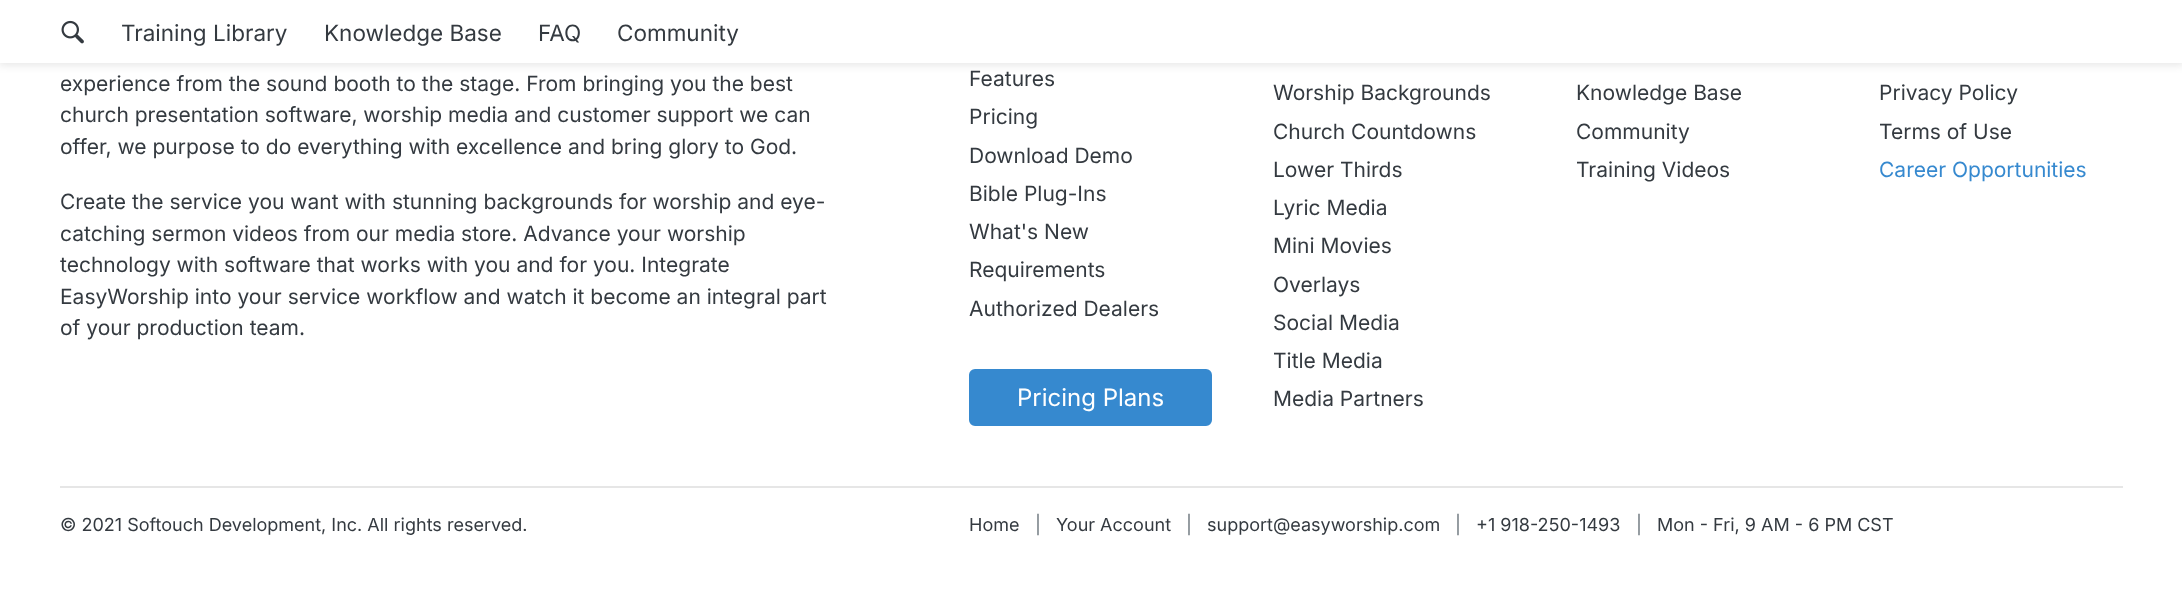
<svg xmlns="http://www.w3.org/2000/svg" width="2182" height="600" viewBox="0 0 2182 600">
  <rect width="100%" height="100%" fill="rgb(255,255,255)"/>
  <rect x="-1" y="-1" width="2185" height="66" fill="rgba(0,0,0,0.1)" filter="blur(4px)"/>
  <rect x="0" y="0" width="2182" height="63" fill="rgb(255,255,255)"/>
  <image x="61" y="20" width="23" height="24" href="pic1.png"/>
  <g font-family="Inter" font-size="22.5" fill="rgb(52,58,64)">
    <text x="121" y="41">Training Library</text>
    <text x="324" y="41">Knowledge Base</text>
    <text x="538" y="41">FAQ</text>
    <text x="617" y="41">Community</text>
  </g>
  <g font-family="Inter" font-size="21" fill="rgb(52,58,64)">
    <text>
      <tspan x="60" y="91">experience from the sound booth to the stage. From bringing you the best</tspan>
      <tspan x="60" y="122">church presentation software, worship media and customer support we can</tspan>
      <tspan x="60" y="154">offer, we purpose to do everything with excellence and bring glory to God.</tspan>
    </text>
    <text>
      <tspan x="60" y="209">Create the service you want with stunning backgrounds for worship and eye-</tspan>
      <tspan x="60" y="241">catching sermon videos from our media store. Advance your worship</tspan>
      <tspan x="60" y="272">technology with software that works with you and for you. Integrate</tspan>
      <tspan x="60" y="304">EasyWorship into your service workflow and watch it become an integral part</tspan>
      <tspan x="60" y="335">of your production team.</tspan>
    </text>
    <text>
      <tspan x="969" y="86">Features</tspan>
      <tspan x="969" y="124">Pricing</tspan>
      <tspan x="969" y="163">Download Demo</tspan>
      <tspan x="969" y="201">Bible Plug-Ins</tspan>
      <tspan x="969" y="239">What's New</tspan>
      <tspan x="969" y="277">Requirements</tspan>
      <tspan x="969" y="316">Authorized Dealers</tspan>
    </text>
  </g>
  <rect x="970" y="370" width="241" height="55" rx="5" fill="rgb(54,137,207)" stroke="rgb(54,137,207)" stroke-width="2"/>
  <text x="1017" y="406" font-family="Inter" font-size="24" fill="rgb(255,255,255)">Pricing Plans</text>
  <g font-family="Inter" font-size="21" fill="rgb(52,58,64)">
    <text>
      <tspan x="1273" y="100">Worship Backgrounds</tspan>
      <tspan x="1273" y="139">Church Countdowns</tspan>
      <tspan x="1273" y="177">Lower Thirds</tspan>
      <tspan x="1273" y="215">Lyric Media</tspan>
      <tspan x="1273" y="253">Mini Movies</tspan>
      <tspan x="1273" y="292">Overlays</tspan>
      <tspan x="1273" y="330">Social Media</tspan>
      <tspan x="1273" y="368">Title Media</tspan>
      <tspan x="1273" y="406">Media Partners</tspan>
    </text>
    <text>
      <tspan x="1576" y="100">Knowledge Base</tspan>
      <tspan x="1576" y="139">Community</tspan>
      <tspan x="1576" y="177">Training Videos</tspan>
    </text>
    <text>
      <tspan x="1879" y="100">Privacy Policy</tspan>
      <tspan x="1879" y="139">Terms of Use</tspan>
    </text>
  </g>
  <text x="1879" y="177" font-family="Inter" font-size="21" fill="rgb(54,137,207)">Career Opportunities</text>
  <rect x="60" y="486" width="2063" height="2" fill="rgb(230,230,230)"/>
  <g font-family="Inter" font-size="18" fill="rgb(52,58,64)">
    <text x="60" y="531">© 2021 Softouch Development, Inc. All rights reserved.</text>
    <text x="969" y="531">Home</text>
  </g>
  <text x="1035" y="531" font-family="Inter" font-size="18" fill="rgb(108,117,125)">|</text>
  <text x="1056" y="531" font-family="Inter" font-size="18" fill="rgb(52,58,64)">Your Account</text>
  <text x="1186" y="531" font-family="Inter" font-size="18" fill="rgb(108,117,125)">|</text>
  <text x="1207" y="531" font-family="Inter" font-size="18" fill="rgb(52,58,64)">support@easyworship.com</text>
  <text x="1455" y="531" font-family="Inter" font-size="18" fill="rgb(108,117,125)">|</text>
  <text x="1476" y="531" font-family="Inter" font-size="18" fill="rgb(52,58,64)">+1 918-250-1493</text>
  <text x="1636" y="531" font-family="Inter" font-size="18" fill="rgb(108,117,125)">|</text>
  <text x="1657" y="531" font-family="Inter" font-size="18" fill="rgb(52,58,64)">Mon - Fri, 9 AM - 6 PM CST</text>
</svg>
